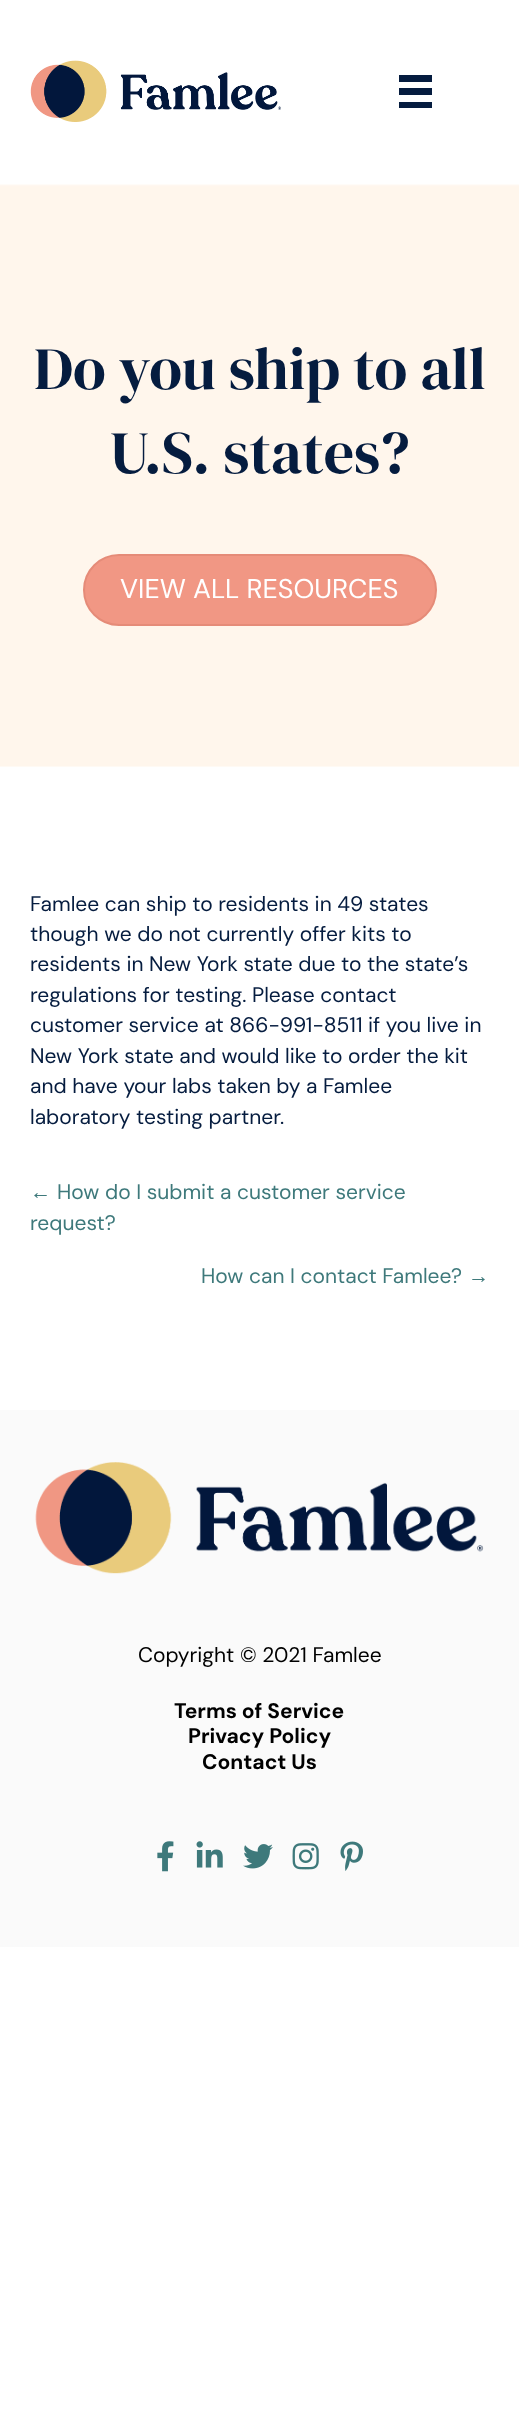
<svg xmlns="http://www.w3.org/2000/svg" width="519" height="2414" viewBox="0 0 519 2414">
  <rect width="100%" height="100%" fill="rgb(255,255,255)"/>
  <image x="30" y="60" width="251" height="62" href="pic1.png"/>
  <rect x="399" y="75" width="33" height="7" fill="rgb(5,28,63)"/>
  <rect x="399" y="88" width="33" height="7" fill="rgb(5,28,63)"/>
  <rect x="399" y="102" width="33" height="6" fill="rgb(5,28,63)"/>
  <image x="0" y="184" width="519" height="583" href="pic2.png"/>
  <g font-family="DM Serif Display" font-size="60" fill="rgb(5,28,63)">
    <text x="34" y="389">Do you ship to all</text>
    <text x="110" y="473">U.S. states?</text>
  </g>
  <rect x="84" y="555" width="352" height="70" rx="35" fill="rgb(241,151,132)" stroke="rgb(229,139,120)" stroke-width="2"/>
  <text x="120" y="598" font-family="DM Sans" font-size="27" fill="rgb(255,255,255)">VIEW ALL RESOURCES</text>
  <g font-family="DM Sans" font-size="21" fill="rgb(5,28,63)">
    <text>
      <tspan x="30" y="911">Famlee can ship to residents in 49 states</tspan>
      <tspan x="30" y="941">though we do not currently offer kits to</tspan>
      <tspan x="30" y="971">residents in New York state due to the state’s</tspan>
      <tspan x="30" y="1002">regulations for testing. Please contact</tspan>
      <tspan x="30" y="1032">customer service at 866-991-8511 if you live in</tspan>
      <tspan x="30" y="1063">New York state and would like to order the kit</tspan>
      <tspan x="30" y="1093">and have your labs taken by a Famlee</tspan>
      <tspan x="30" y="1124">laboratory testing partner.</tspan>
    </text>
  </g>
  <text x="30" y="1199" font-family="Liberation Sans" font-size="21" fill="rgb(62,121,123)">←</text>
  <g font-family="DM Sans" font-size="21" fill="rgb(62,121,123)">
    <text x="57" y="1199">How do I submit a customer service</text>
    <text x="30" y="1230">request?</text>
    <text x="201" y="1283">How can I contact Famlee?</text>
  </g>
  <text x="468" y="1283" font-family="Liberation Sans" font-size="21" fill="rgb(62,121,123)">→</text>
  <rect x="0" y="1410" width="519" height="537" fill="rgb(250,250,250)"/>
  <image x="35" y="1462" width="449" height="112" href="pic3.png"/>
  <text x="138" y="1662" font-family="DM Sans" font-size="21" fill="rgb(0,0,0)">Copyright © 2021 Famlee</text>
  <g font-family="DM Sans" font-size="21" font-weight="bold" fill="rgb(0,0,0)">
    <text x="174" y="1718">Terms of Service</text>
    <text x="188" y="1743">Privacy Policy</text>
    <text x="202" y="1769">Contact Us</text>
  </g>
  <image x="157" y="1841" width="17" height="31" href="pic4.png"/>
  <image x="196" y="1841" width="27" height="27" href="pic5.png"/>
  <image x="243" y="1844" width="30" height="25" href="pic6.png"/>
  <image x="292" y="1843" width="27" height="27" href="pic7.png"/>
  <image x="340" y="1841" width="23" height="30" href="pic8.png"/>
</svg>
